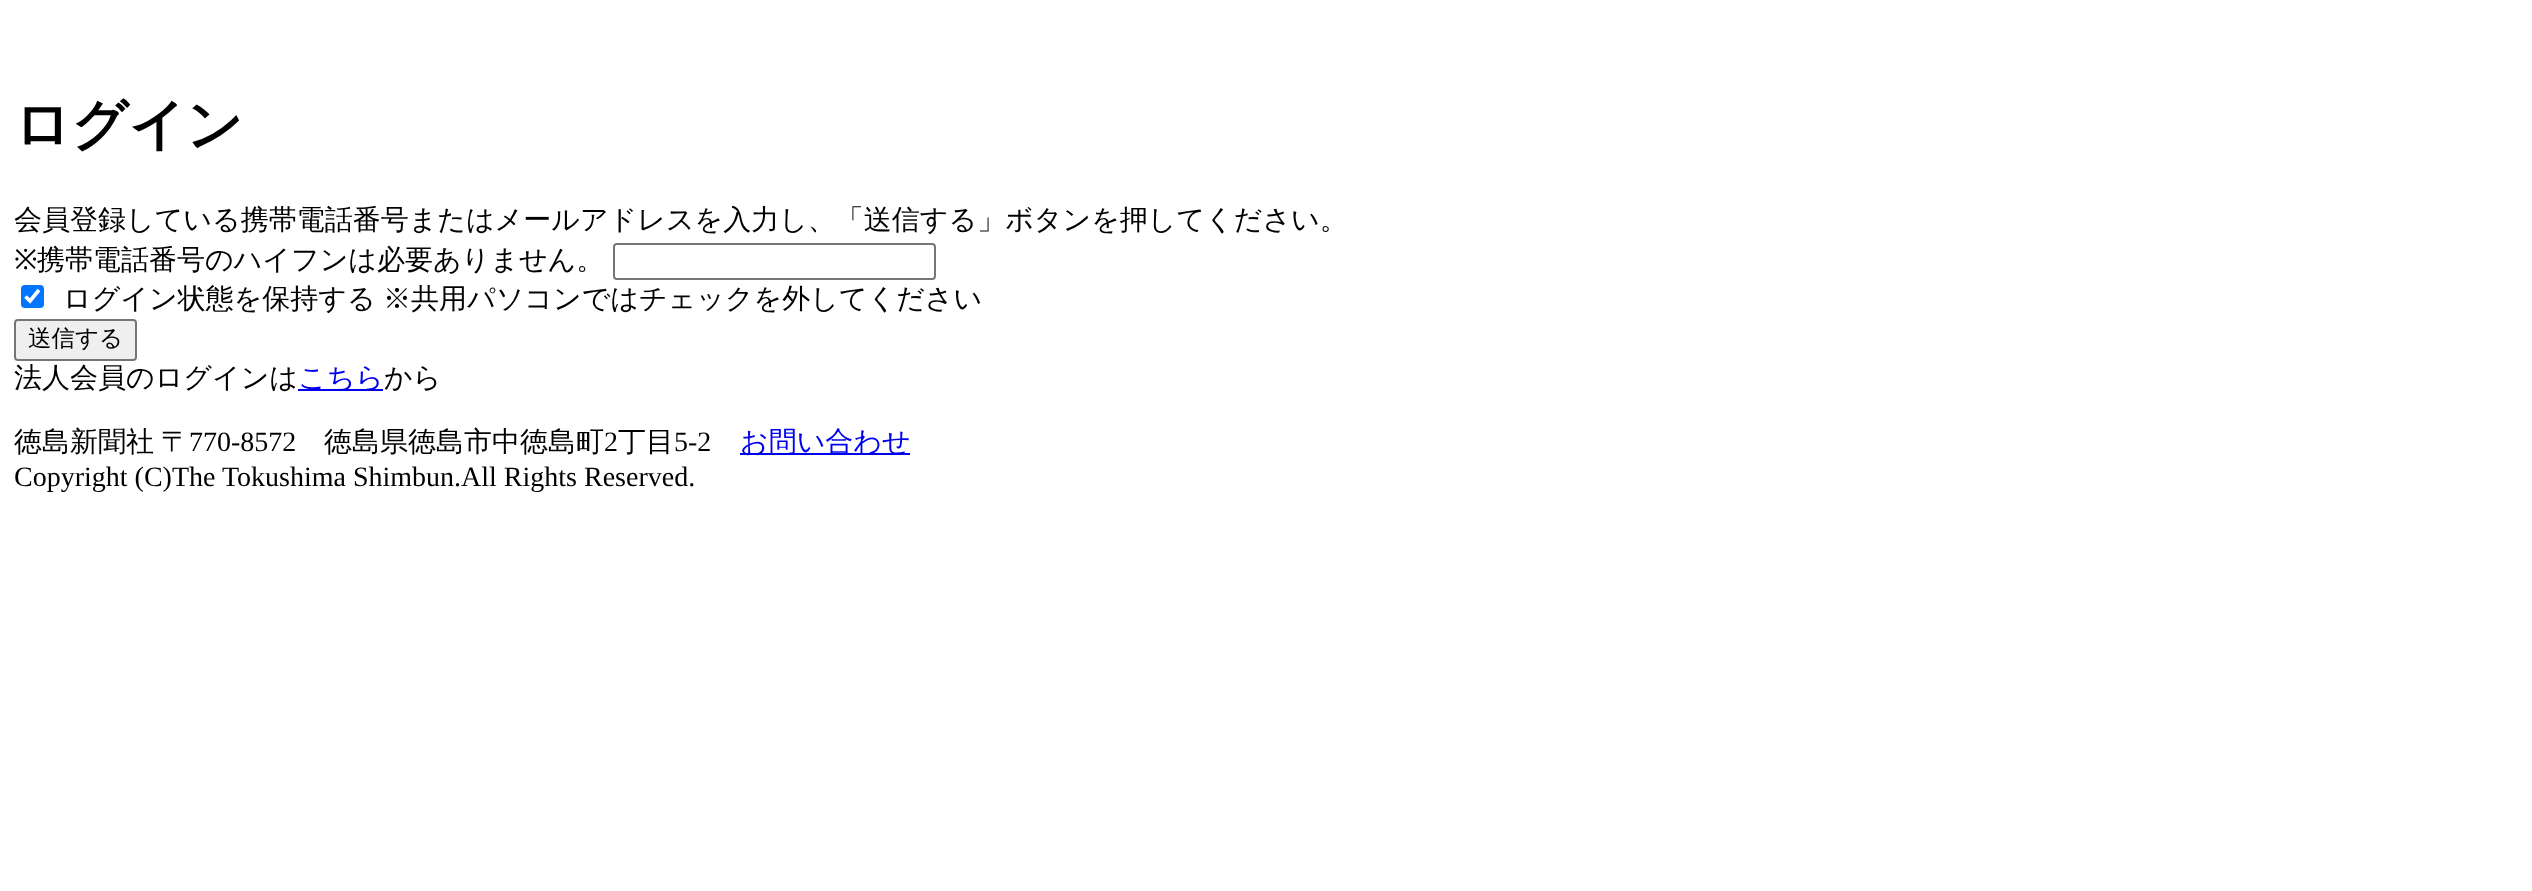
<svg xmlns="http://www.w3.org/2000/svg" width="2532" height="891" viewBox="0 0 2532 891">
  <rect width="100%" height="100%" fill="rgb(255,255,255)"/>
  <text x="14" y="144" font-family="WenQuanYi Zen Hei" font-size="56" font-weight="bold" fill="rgb(0,0,0)">ログイン</text>
  <text x="14" y="229" font-family="WenQuanYi Zen Hei" font-size="28" font-weight="500" fill="rgb(0,0,0)">会員登録している携帯電話番号またはメールアドレスを入力し、「送信する」ボタンを押してください。</text>
  <text x="14" y="269" font-family="Noto Sans" font-size="28" fill="rgb(0,0,0)">※</text>
  <text x="37" y="269" font-family="WenQuanYi Zen Hei" font-size="28" font-weight="500" fill="rgb(0,0,0)">携帯電話番号のハイフンは必要ありません。</text>
  <rect x="614" y="244" width="321" height="35" rx="3" fill="none" stroke="rgb(118,118,118)" stroke-width="2"/>
  <rect x="21" y="285" width="23" height="23" rx="4" fill="rgb(0,117,255)"/>
  <path d="M25.5 296.5L30 301L39 290" fill="none" stroke="rgb(255,255,255)" stroke-width="3.6"/>
  <g font-family="WenQuanYi Zen Hei" font-size="28" font-weight="500" fill="rgb(0,0,0)">
    <text x="63" y="308">ログイン状態を保持する</text>
    <text x="383" y="308">※共用パソコンではチェックを外してください</text>
  </g>
  <rect x="15" y="320" width="121" height="40" rx="3" fill="rgb(239,239,239)" stroke="rgb(118,118,118)" stroke-width="2"/>
  <text x="28" y="346" font-family="WenQuanYi Zen Hei" font-size="23.5" font-weight="500" fill="rgb(0,0,0)">送信する</text>
  <text x="14" y="387" font-family="WenQuanYi Zen Hei" font-size="28" font-weight="500" fill="rgb(0,0,0)">法人会員のログインは</text>
  <rect x="298" y="389" width="85" height="2" fill="rgb(0,0,238)"/>
  <text x="298" y="387" font-family="WenQuanYi Zen Hei" font-size="28" font-weight="500" fill="rgb(0,0,238)">こちら</text>
  <g font-family="WenQuanYi Zen Hei" font-size="28" font-weight="500" fill="rgb(0,0,0)">
    <text x="384" y="387">から</text>
    <text x="14" y="451">徳島新聞社</text>
    <text x="161" y="451">〒</text>
  </g>
  <text x="189" y="451" font-family="Liberation Serif" font-size="28" fill="rgb(0,0,0)">770-8572</text>
  <text x="324" y="451" font-family="WenQuanYi Zen Hei" font-size="28" font-weight="500" fill="rgb(0,0,0)">徳島県徳島市中徳島町</text>
  <text x="604" y="451" font-family="Liberation Serif" font-size="28" fill="rgb(0,0,0)">2</text>
  <text x="618" y="451" font-family="WenQuanYi Zen Hei" font-size="28" font-weight="500" fill="rgb(0,0,0)">丁目</text>
  <text x="674" y="451" font-family="Liberation Serif" font-size="28" fill="rgb(0,0,0)">5-2</text>
  <rect x="740" y="453" width="170" height="2" fill="rgb(0,0,238)"/>
  <text x="740" y="451" font-family="WenQuanYi Zen Hei" font-size="28" font-weight="500" fill="rgb(0,0,238)">お問い合わせ</text>
  <text x="14" y="486" font-family="Liberation Serif" font-size="28" fill="rgb(0,0,0)">Copyright (C)The Tokushima Shimbun.All Rights Reserved.</text>
</svg>
